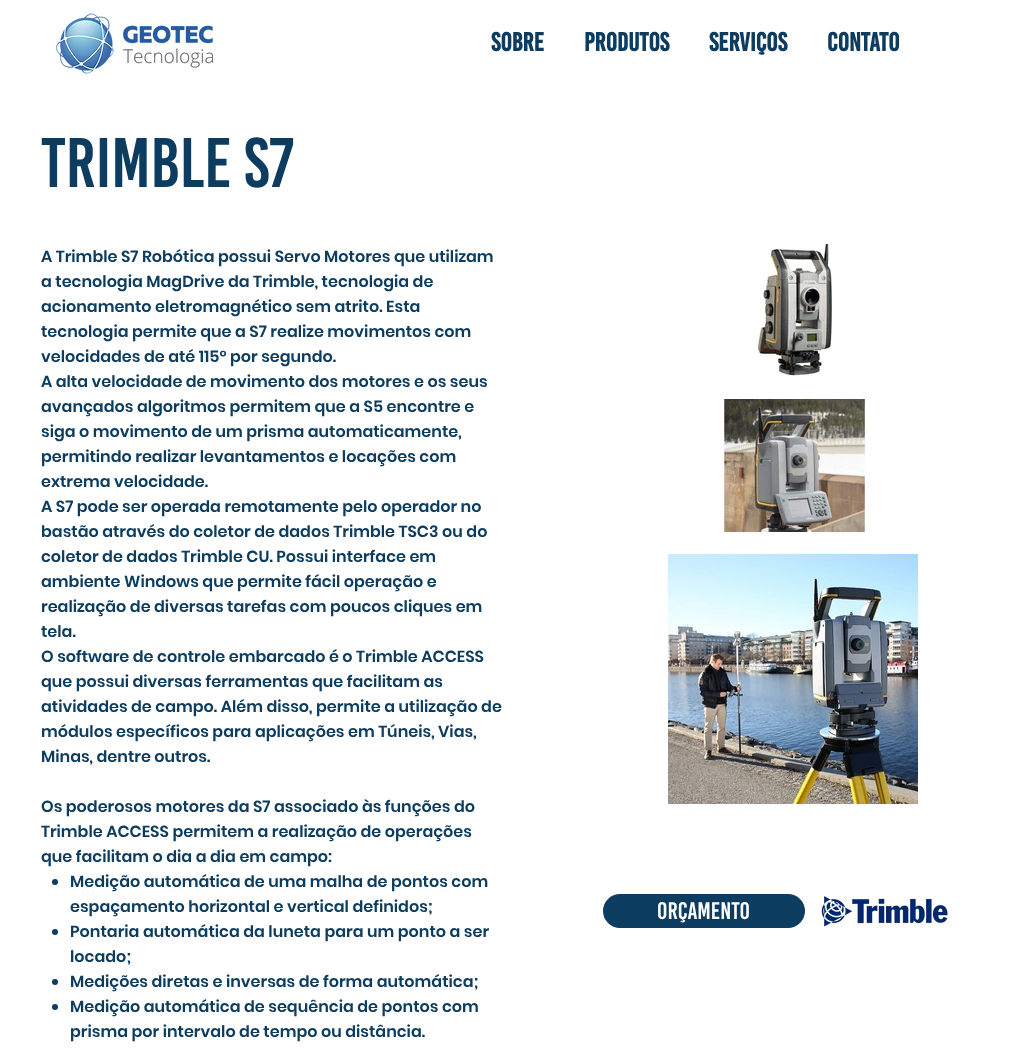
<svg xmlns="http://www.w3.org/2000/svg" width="1026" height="1058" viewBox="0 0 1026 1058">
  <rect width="100%" height="100%" fill="rgb(255,255,255)"/>
  <image x="56" y="13" width="158" height="61" href="pic1.png"/>
  <g font-family="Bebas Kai" font-size="26" font-weight="bold" fill="rgb(12,60,96)">
    <text x="491" y="51">sobre</text>
    <text x="584" y="51">Produtos</text>
    <text x="709" y="51">Serviços</text>
    <text x="827" y="51">Contato</text>
  </g>
  <text x="41" y="187" font-family="Bebas Kai" font-size="70" fill="rgb(12,60,96)">Trimble S7</text>
  <g font-family="Poppins" font-size="16" font-weight="600" fill="rgb(12,60,96)">
    <text>
      <tspan x="41" y="262">A Trimble S7 Robótica possui Servo Motores que utilizam</tspan>
      <tspan x="41" y="287">a tecnologia MagDrive da Trimble, tecnologia de</tspan>
      <tspan x="41" y="312">acionamento eletromagnético sem atrito. Esta</tspan>
      <tspan x="41" y="337">tecnologia permite que a S7 realize movimentos com</tspan>
      <tspan x="41" y="362">velocidades de até 115° por segundo.</tspan>
      <tspan x="41" y="387">A alta velocidade de movimento dos motores e os seus</tspan>
      <tspan x="41" y="412">avançados algoritmos permitem que a S5 encontre e</tspan>
      <tspan x="41" y="437">siga o movimento de um prisma automaticamente,</tspan>
      <tspan x="41" y="462">permitindo realizar levantamentos e locações com</tspan>
      <tspan x="41" y="487">extrema velocidade.</tspan>
      <tspan x="41" y="512">A S7 pode ser operada remotamente pelo operador no</tspan>
      <tspan x="41" y="537">bastão através do coletor de dados Trimble TSC3 ou do</tspan>
      <tspan x="41" y="562">coletor de dados Trimble CU. Possui interface em</tspan>
      <tspan x="41" y="587">ambiente Windows que permite fácil operação e</tspan>
      <tspan x="41" y="612">realização de diversas tarefas com poucos cliques em</tspan>
      <tspan x="41" y="637">tela.</tspan>
      <tspan x="41" y="662">O software de controle embarcado é o Trimble ACCESS</tspan>
      <tspan x="41" y="687">que possui diversas ferramentas que facilitam as</tspan>
      <tspan x="41" y="712">atividades de campo. Além disso, permite a utilização de</tspan>
      <tspan x="41" y="737">módulos específicos para aplicações em Túneis, Vias,</tspan>
      <tspan x="41" y="762">Minas, dentre outros.</tspan>
    </text>
    <text>
      <tspan x="41" y="812">Os poderosos motores da S7 associado às funções do</tspan>
      <tspan x="41" y="837">Trimble ACCESS permitem a realização de operações</tspan>
      <tspan x="41" y="862">que facilitam o dia a dia em campo:</tspan>
    </text>
  </g>
  <circle cx="55" cy="882" r="3" fill="rgb(12,60,96)"/>
  <g font-family="Poppins" font-size="16" font-weight="600" fill="rgb(12,60,96)">
    <text>
      <tspan x="70" y="887">Medição automática de uma malha de pontos com</tspan>
      <tspan x="70" y="912">espaçamento horizontal e vertical definidos;</tspan>
    </text>
  </g>
  <circle cx="55" cy="932" r="3" fill="rgb(12,60,96)"/>
  <g font-family="Poppins" font-size="16" font-weight="600" fill="rgb(12,60,96)">
    <text>
      <tspan x="70" y="937">Pontaria automática da luneta para um ponto a ser</tspan>
      <tspan x="70" y="962">locado;</tspan>
    </text>
  </g>
  <circle cx="55" cy="982" r="3" fill="rgb(12,60,96)"/>
  <text x="70" y="987" font-family="Poppins" font-size="16" font-weight="600" fill="rgb(12,60,96)">Medições diretas e inversas de forma automática;</text>
  <circle cx="55" cy="1007" r="3" fill="rgb(12,60,96)"/>
  <g font-family="Poppins" font-size="16" font-weight="600" fill="rgb(12,60,96)">
    <text>
      <tspan x="70" y="1012">Medição automática de sequência de pontos com</tspan>
      <tspan x="70" y="1037">prisma por intervalo de tempo ou distância.</tspan>
    </text>
  </g>
  <image x="756" y="244" width="76" height="132" href="pic2.png"/>
  <image x="723" y="399" width="145" height="133" href="pic3.png"/>
  <image x="668" y="554" width="250" height="250" href="pic4.png"/>
  <rect x="603" y="894" width="202" height="34" rx="17" fill="rgb(12,60,96)"/>
  <text x="657" y="919" font-family="Bebas Kai" font-size="24" fill="rgb(255,255,255)">Orçamento</text>
  <image x="821" y="896" width="127" height="31" href="pic5.png"/>
</svg>
